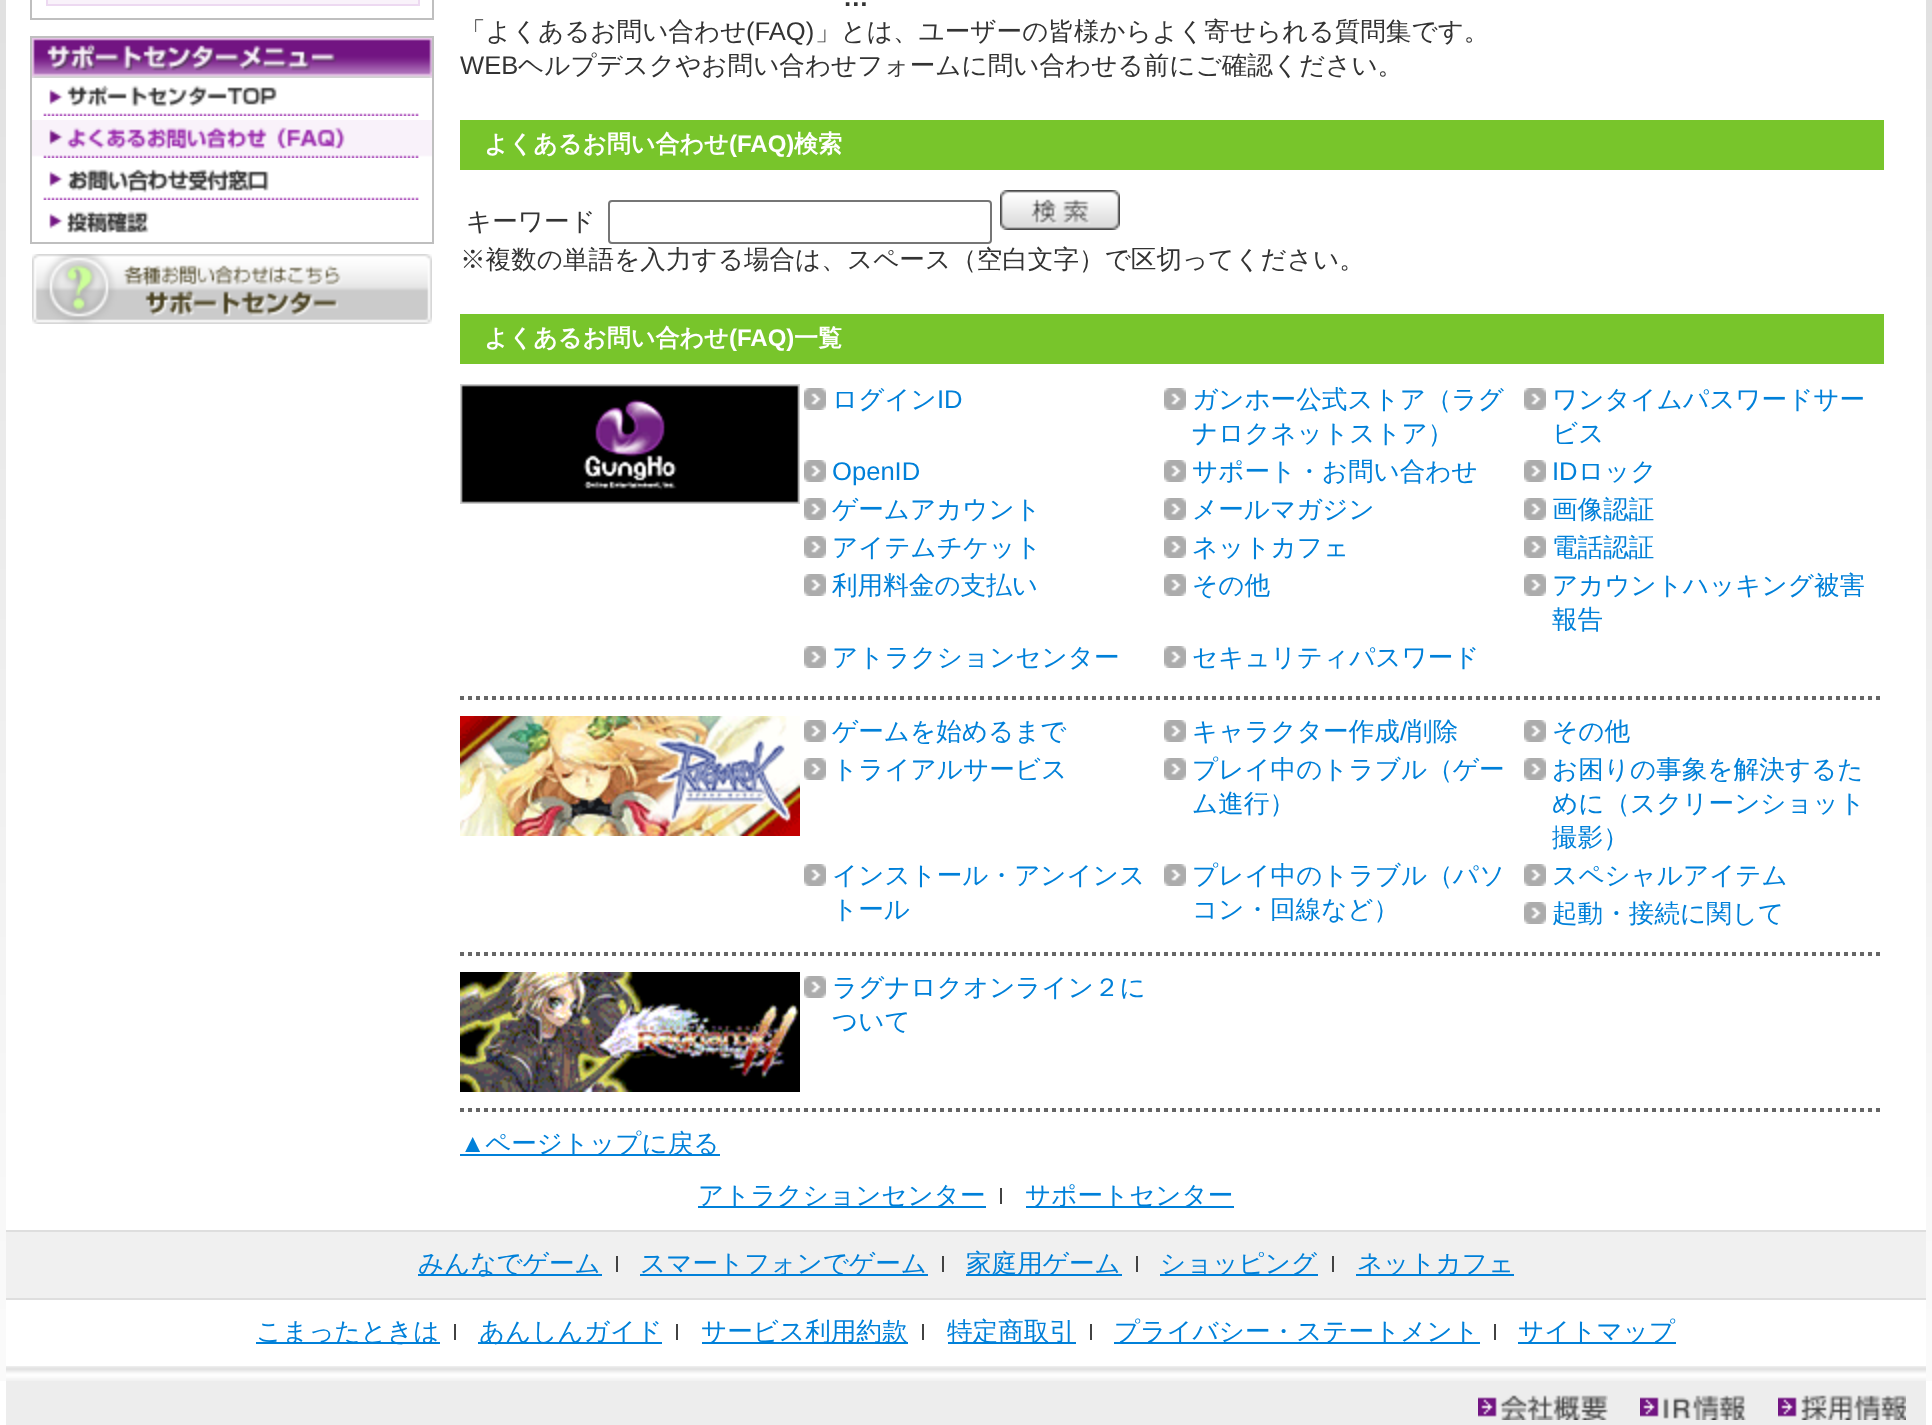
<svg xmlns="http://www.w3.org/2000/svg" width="1932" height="1425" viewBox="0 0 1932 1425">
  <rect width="100%" height="100%" fill="rgb(255,255,255)"/>
  <image x="0" y="0" width="1932" height="1381" href="pic1.png"/>
  <rect x="6" y="0" width="1920" height="1366" fill="rgb(255,255,255)"/>
  <rect x="31" y="-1" width="402" height="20" fill="none" stroke="rgb(191,191,191)" stroke-width="2"/>
  <rect x="47" y="-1" width="372" height="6" fill="rgb(249,242,250)" stroke="rgb(237,217,241)" stroke-width="2"/>
  <rect x="31" y="37" width="402" height="206" fill="none" stroke="rgb(191,191,191)" stroke-width="2"/>
  <image x="32" y="38" width="400" height="40" href="pic2.png"/>
  <image x="43" y="85" width="376" height="31" href="pic3.png"/>
  <image x="32" y="120" width="400" height="38" href="pic4.png"/>
  <image x="43" y="169" width="376" height="31" href="pic5.png"/>
  <image x="49" y="211" width="100" height="22" href="pic6.png"/>
  <image x="32" y="254" width="400" height="70" href="pic7.png"/>
  <text x="843" y="6" font-family="Liberation Sans" font-size="25.6" font-weight="bold" fill="rgb(51,51,51)">…</text>
  <text x="460" y="40" font-family="WenQuanYi Zen Hei" font-size="25.6" font-weight="500" fill="rgb(51,51,51)">「よくあるお問い合わせ</text>
  <text x="746" y="40" font-family="Liberation Sans" font-size="25.6" fill="rgb(51,51,51)">(FAQ)</text>
  <text x="815" y="40" font-family="WenQuanYi Zen Hei" font-size="25.6" font-weight="500" fill="rgb(51,51,51)">」とは、ユーザーの皆様からよく寄せられる質問集です。</text>
  <text x="460" y="74" font-family="Liberation Sans" font-size="25.6" fill="rgb(51,51,51)">WEB</text>
  <text x="518" y="74" font-family="WenQuanYi Zen Hei" font-size="25.6" font-weight="500" fill="rgb(51,51,51)">ヘルプデスクやお問い合わせフォームに問い合わせる前にご確認ください。</text>
  <rect x="460" y="120" width="1424" height="50" fill="rgb(120,197,43)"/>
  <text x="484" y="152" font-family="WenQuanYi Zen Hei" font-size="24" font-weight="bold" fill="rgb(255,255,255)">よくあるお問い合わせ</text>
  <text x="729" y="152" font-family="Liberation Sans" font-size="24" font-weight="bold" fill="rgb(255,255,255)">(FAQ)</text>
  <text x="794" y="152" font-family="WenQuanYi Zen Hei" font-size="24" font-weight="bold" fill="rgb(255,255,255)">検索</text>
  <text x="466" y="230" font-family="WenQuanYi Zen Hei" font-size="25.6" font-weight="500" fill="rgb(51,51,51)">キーワード</text>
  <rect x="609" y="201" width="382" height="42" rx="3" fill="none" stroke="rgb(118,118,118)" stroke-width="2"/>
  <image x="1000" y="190" width="120" height="40" href="pic8.png"/>
  <text x="460" y="268" font-family="WenQuanYi Zen Hei" font-size="25.6" font-weight="500" fill="rgb(51,51,51)">※複数の単語を入力する場合は、スペース（空白文字）で区切ってください。</text>
  <rect x="460" y="314" width="1424" height="50" fill="rgb(120,197,43)"/>
  <text x="484" y="346" font-family="WenQuanYi Zen Hei" font-size="24" font-weight="bold" fill="rgb(255,255,255)">よくあるお問い合わせ</text>
  <text x="729" y="346" font-family="Liberation Sans" font-size="24" font-weight="bold" fill="rgb(255,255,255)">(FAQ)</text>
  <text x="794" y="346" font-family="WenQuanYi Zen Hei" font-size="24" font-weight="bold" fill="rgb(255,255,255)">一覧</text>
  <path d="M460 698H1884" fill="none" stroke="rgb(102,102,102)" stroke-width="4" stroke-dasharray="4 4"/>
  <image x="460" y="384" width="340" height="120" href="pic9.png"/>
  <image x="804" y="388" width="22" height="22" href="pic10.png"/>
  <text x="832" y="408" font-family="WenQuanYi Zen Hei" font-size="25.6" font-weight="500" fill="rgb(0,128,217)">ログイン</text>
  <text x="937" y="408" font-family="Liberation Sans" font-size="25.6" fill="rgb(0,128,217)">ID</text>
  <image x="1164" y="388" width="22" height="22" href="pic10.png"/>
  <g font-family="WenQuanYi Zen Hei" font-size="25.6" font-weight="500" fill="rgb(0,128,217)">
    <text>
      <tspan x="1192" y="408">ガンホー公式ストア（ラグ</tspan>
      <tspan x="1192" y="442">ナロクネットストア）</tspan>
    </text>
  </g>
  <image x="1524" y="388" width="22" height="22" href="pic10.png"/>
  <g font-family="WenQuanYi Zen Hei" font-size="25.6" font-weight="500" fill="rgb(0,128,217)">
    <text>
      <tspan x="1552" y="408">ワンタイムパスワードサー</tspan>
      <tspan x="1552" y="442">ビス</tspan>
    </text>
  </g>
  <image x="804" y="460" width="22" height="22" href="pic10.png"/>
  <text x="832" y="480" font-family="Liberation Sans" font-size="25.6" fill="rgb(0,128,217)">OpenID</text>
  <image x="1164" y="460" width="22" height="22" href="pic10.png"/>
  <text x="1192" y="480" font-family="WenQuanYi Zen Hei" font-size="25.6" font-weight="500" fill="rgb(0,128,217)">サポート・お問い合わせ</text>
  <image x="1524" y="460" width="22" height="22" href="pic10.png"/>
  <text x="1552" y="480" font-family="Liberation Sans" font-size="25.6" fill="rgb(0,128,217)">ID</text>
  <text x="1578" y="480" font-family="WenQuanYi Zen Hei" font-size="25.6" font-weight="500" fill="rgb(0,128,217)">ロック</text>
  <image x="804" y="498" width="22" height="22" href="pic10.png"/>
  <text x="832" y="518" font-family="WenQuanYi Zen Hei" font-size="25.6" font-weight="500" fill="rgb(0,128,217)">ゲームアカウント</text>
  <image x="1164" y="498" width="22" height="22" href="pic10.png"/>
  <text x="1192" y="518" font-family="WenQuanYi Zen Hei" font-size="25.6" font-weight="500" fill="rgb(0,128,217)">メールマガジン</text>
  <image x="1524" y="498" width="22" height="22" href="pic10.png"/>
  <text x="1552" y="518" font-family="WenQuanYi Zen Hei" font-size="25.6" font-weight="500" fill="rgb(0,128,217)">画像認証</text>
  <image x="804" y="536" width="22" height="22" href="pic10.png"/>
  <text x="832" y="556" font-family="WenQuanYi Zen Hei" font-size="25.6" font-weight="500" fill="rgb(0,128,217)">アイテムチケット</text>
  <image x="1164" y="536" width="22" height="22" href="pic10.png"/>
  <text x="1192" y="556" font-family="WenQuanYi Zen Hei" font-size="25.6" font-weight="500" fill="rgb(0,128,217)">ネットカフェ</text>
  <image x="1524" y="536" width="22" height="22" href="pic10.png"/>
  <text x="1552" y="556" font-family="WenQuanYi Zen Hei" font-size="25.6" font-weight="500" fill="rgb(0,128,217)">電話認証</text>
  <image x="804" y="574" width="22" height="22" href="pic10.png"/>
  <text x="832" y="594" font-family="WenQuanYi Zen Hei" font-size="25.6" font-weight="500" fill="rgb(0,128,217)">利用料金の支払い</text>
  <image x="1164" y="574" width="22" height="22" href="pic10.png"/>
  <text x="1192" y="594" font-family="WenQuanYi Zen Hei" font-size="25.6" font-weight="500" fill="rgb(0,128,217)">その他</text>
  <image x="1524" y="574" width="22" height="22" href="pic10.png"/>
  <g font-family="WenQuanYi Zen Hei" font-size="25.6" font-weight="500" fill="rgb(0,128,217)">
    <text>
      <tspan x="1552" y="594">アカウントハッキング被害</tspan>
      <tspan x="1552" y="628">報告</tspan>
    </text>
  </g>
  <image x="804" y="646" width="22" height="22" href="pic10.png"/>
  <text x="832" y="666" font-family="WenQuanYi Zen Hei" font-size="25.6" font-weight="500" fill="rgb(0,128,217)">アトラクションセンター</text>
  <image x="1164" y="646" width="22" height="22" href="pic10.png"/>
  <text x="1192" y="666" font-family="WenQuanYi Zen Hei" font-size="25.6" font-weight="500" fill="rgb(0,128,217)">セキュリティパスワード</text>
  <path d="M460 954H1884" fill="none" stroke="rgb(102,102,102)" stroke-width="4" stroke-dasharray="4 4"/>
  <image x="460" y="716" width="340" height="120" href="pic11.png"/>
  <image x="804" y="720" width="22" height="22" href="pic10.png"/>
  <text x="832" y="740" font-family="WenQuanYi Zen Hei" font-size="25.6" font-weight="500" fill="rgb(0,128,217)">ゲームを始めるまで</text>
  <image x="1164" y="720" width="22" height="22" href="pic10.png"/>
  <text x="1192" y="740" font-family="WenQuanYi Zen Hei" font-size="25.6" font-weight="500" fill="rgb(0,128,217)">キャラクター作成</text>
  <text x="1400" y="740" font-family="Liberation Sans" font-size="25.6" fill="rgb(0,128,217)">/</text>
  <text x="1407" y="740" font-family="WenQuanYi Zen Hei" font-size="25.6" font-weight="500" fill="rgb(0,128,217)">削除</text>
  <image x="1524" y="720" width="22" height="22" href="pic10.png"/>
  <text x="1552" y="740" font-family="WenQuanYi Zen Hei" font-size="25.6" font-weight="500" fill="rgb(0,128,217)">その他</text>
  <image x="804" y="758" width="22" height="22" href="pic10.png"/>
  <text x="832" y="778" font-family="WenQuanYi Zen Hei" font-size="25.6" font-weight="500" fill="rgb(0,128,217)">トライアルサービス</text>
  <image x="1164" y="758" width="22" height="22" href="pic10.png"/>
  <g font-family="WenQuanYi Zen Hei" font-size="25.6" font-weight="500" fill="rgb(0,128,217)">
    <text>
      <tspan x="1192" y="778">プレイ中のトラブル（ゲー</tspan>
      <tspan x="1192" y="812">ム進行）</tspan>
    </text>
  </g>
  <image x="1524" y="758" width="22" height="22" href="pic10.png"/>
  <g font-family="WenQuanYi Zen Hei" font-size="25.6" font-weight="500" fill="rgb(0,128,217)">
    <text>
      <tspan x="1552" y="778">お困りの事象を解決するた</tspan>
      <tspan x="1552" y="812">めに（スクリーンショット</tspan>
      <tspan x="1552" y="846">撮影）</tspan>
    </text>
  </g>
  <image x="804" y="864" width="22" height="22" href="pic10.png"/>
  <g font-family="WenQuanYi Zen Hei" font-size="25.6" font-weight="500" fill="rgb(0,128,217)">
    <text>
      <tspan x="832" y="884">インストール・アンインス</tspan>
      <tspan x="832" y="918">トール</tspan>
    </text>
  </g>
  <image x="1164" y="864" width="22" height="22" href="pic10.png"/>
  <g font-family="WenQuanYi Zen Hei" font-size="25.6" font-weight="500" fill="rgb(0,128,217)">
    <text>
      <tspan x="1192" y="884">プレイ中のトラブル（パソ</tspan>
      <tspan x="1192" y="918">コン・回線など）</tspan>
    </text>
  </g>
  <image x="1524" y="864" width="22" height="22" href="pic10.png"/>
  <text x="1552" y="884" font-family="WenQuanYi Zen Hei" font-size="25.6" font-weight="500" fill="rgb(0,128,217)">スペシャルアイテム</text>
  <image x="1524" y="902" width="22" height="22" href="pic10.png"/>
  <text x="1552" y="922" font-family="WenQuanYi Zen Hei" font-size="25.6" font-weight="500" fill="rgb(0,128,217)">起動・接続に関して</text>
  <path d="M460 1110H1884" fill="none" stroke="rgb(102,102,102)" stroke-width="4" stroke-dasharray="4 4"/>
  <image x="460" y="972" width="340" height="120" href="pic12.png"/>
  <image x="804" y="976" width="22" height="22" href="pic10.png"/>
  <g font-family="WenQuanYi Zen Hei" font-size="25.6" font-weight="500" fill="rgb(0,128,217)">
    <text>
      <tspan x="832" y="996">ラグナロクオンライン２に</tspan>
      <tspan x="832" y="1030">ついて</tspan>
    </text>
  </g>
  <text x="460" y="1152" font-family="Liberation Sans" font-size="25.6" fill="rgb(0,128,217)">▲</text>
  <rect x="460" y="1154" width="260" height="2" fill="rgb(0,128,217)"/>
  <text x="485" y="1152" font-family="WenQuanYi Zen Hei" font-size="25.6" font-weight="500" fill="rgb(0,128,217)">ページトップに戻る</text>
  <rect x="1000" y="1188" width="2" height="16" fill="rgb(66,66,66)"/>
  <rect x="698" y="1206" width="288" height="2" fill="rgb(0,128,217)"/>
  <text x="698" y="1204" font-family="WenQuanYi Zen Hei" font-size="25.6" font-weight="500" fill="rgb(0,128,217)">アトラクションセンター</text>
  <rect x="1026" y="1206" width="208" height="2" fill="rgb(0,128,217)"/>
  <text x="1025" y="1204" font-family="WenQuanYi Zen Hei" font-size="25.6" font-weight="500" fill="rgb(0,128,217)">サポートセンター</text>
  <rect x="6" y="1232" width="1920" height="66" fill="rgb(240,240,240)"/>
  <rect x="6" y="1230" width="1920" height="2" fill="rgb(222,222,222)"/>
  <rect x="6" y="1298" width="1920" height="2" fill="rgb(222,222,222)"/>
  <rect x="616" y="1256" width="2" height="16" fill="rgb(66,66,66)"/>
  <rect x="418" y="1274" width="184" height="2" fill="rgb(0,128,217)"/>
  <text x="418" y="1272" font-family="WenQuanYi Zen Hei" font-size="25.6" font-weight="500" fill="rgb(0,128,217)">みんなでゲーム</text>
  <rect x="942" y="1256" width="2" height="16" fill="rgb(66,66,66)"/>
  <rect x="640" y="1274" width="288" height="2" fill="rgb(0,128,217)"/>
  <text x="640" y="1272" font-family="WenQuanYi Zen Hei" font-size="25.6" font-weight="500" fill="rgb(0,128,217)">スマートフォンでゲーム</text>
  <rect x="1136" y="1256" width="2" height="16" fill="rgb(66,66,66)"/>
  <rect x="966" y="1274" width="156" height="2" fill="rgb(0,128,217)"/>
  <text x="966" y="1272" font-family="WenQuanYi Zen Hei" font-size="25.6" font-weight="500" fill="rgb(0,128,217)">家庭用ゲーム</text>
  <rect x="1332" y="1256" width="2" height="16" fill="rgb(66,66,66)"/>
  <rect x="1160" y="1274" width="158" height="2" fill="rgb(0,128,217)"/>
  <text x="1160" y="1272" font-family="WenQuanYi Zen Hei" font-size="25.6" font-weight="500" fill="rgb(0,128,217)">ショッピング</text>
  <rect x="1356" y="1274" width="158" height="2" fill="rgb(0,128,217)"/>
  <text x="1357" y="1272" font-family="WenQuanYi Zen Hei" font-size="25.6" font-weight="500" fill="rgb(0,128,217)">ネットカフェ</text>
  <rect x="454" y="1324" width="2" height="16" fill="rgb(66,66,66)"/>
  <rect x="256" y="1342" width="184" height="2" fill="rgb(0,128,217)"/>
  <text x="256" y="1340" font-family="WenQuanYi Zen Hei" font-size="25.6" font-weight="500" fill="rgb(0,128,217)">こまったときは</text>
  <rect x="676" y="1324" width="2" height="16" fill="rgb(66,66,66)"/>
  <rect x="478" y="1342" width="184" height="2" fill="rgb(0,128,217)"/>
  <text x="479" y="1340" font-family="WenQuanYi Zen Hei" font-size="25.6" font-weight="500" fill="rgb(0,128,217)">あんしんガイド</text>
  <rect x="922" y="1324" width="2" height="16" fill="rgb(66,66,66)"/>
  <rect x="702" y="1342" width="206" height="2" fill="rgb(0,128,217)"/>
  <text x="701" y="1340" font-family="WenQuanYi Zen Hei" font-size="25.6" font-weight="500" fill="rgb(0,128,217)">サービス利用約款</text>
  <rect x="1090" y="1324" width="2" height="16" fill="rgb(66,66,66)"/>
  <rect x="948" y="1342" width="128" height="2" fill="rgb(0,128,217)"/>
  <text x="947" y="1340" font-family="WenQuanYi Zen Hei" font-size="25.6" font-weight="500" fill="rgb(0,128,217)">特定商取引</text>
  <rect x="1494" y="1324" width="2" height="16" fill="rgb(66,66,66)"/>
  <rect x="1114" y="1342" width="366" height="2" fill="rgb(0,128,217)"/>
  <text x="1114" y="1340" font-family="WenQuanYi Zen Hei" font-size="25.6" font-weight="500" fill="rgb(0,128,217)">プライバシー・ステートメント</text>
  <rect x="1518" y="1342" width="158" height="2" fill="rgb(0,128,217)"/>
  <text x="1518" y="1340" font-family="WenQuanYi Zen Hei" font-size="25.6" font-weight="500" fill="rgb(0,128,217)">サイトマップ</text>
  <rect x="6" y="1366" width="1920" height="59" fill="rgb(237,237,237)"/>
  <image x="6" y="1367" width="1920" height="14" href="pic13.png"/>
  <image x="1478" y="1395" width="130" height="25" href="pic14.png"/>
  <image x="1640" y="1395" width="106" height="25" href="pic15.png"/>
  <image x="1778" y="1395" width="128" height="25" href="pic16.png"/>
</svg>
